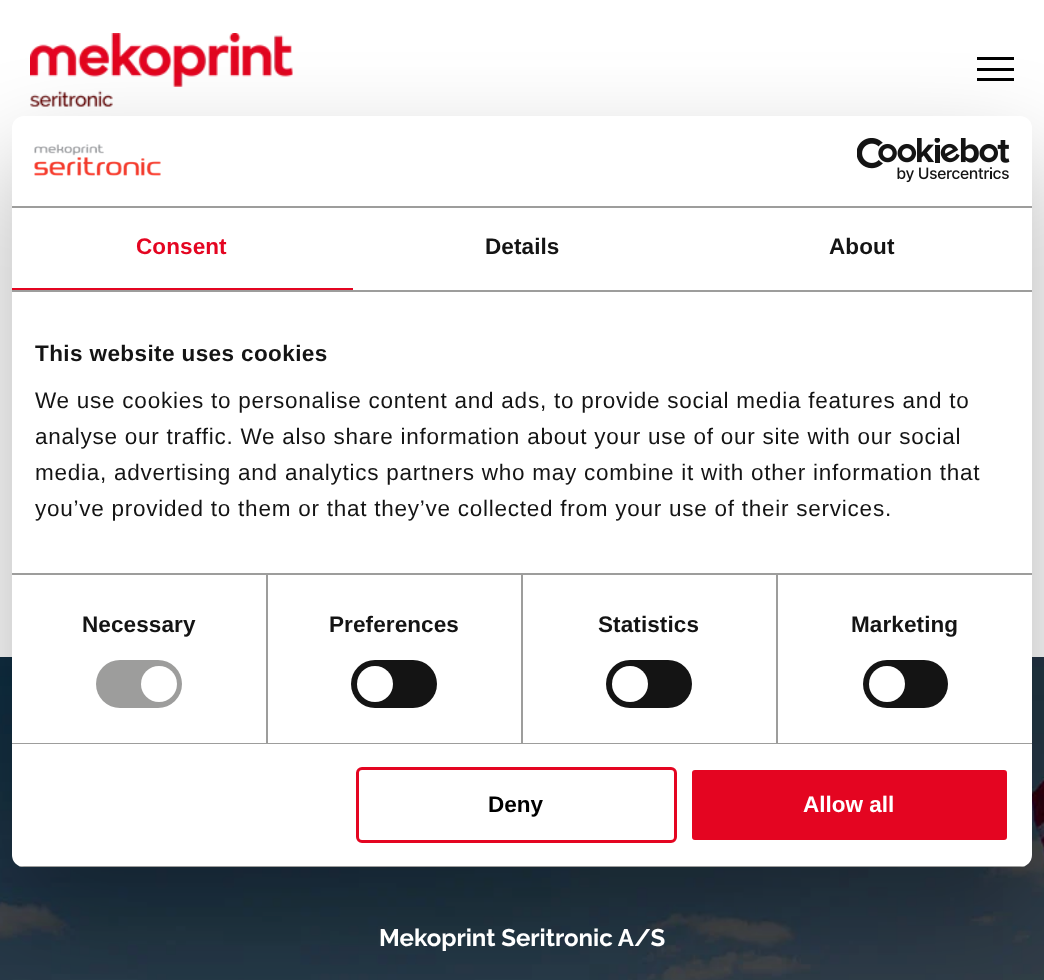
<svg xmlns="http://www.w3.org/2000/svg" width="1044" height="980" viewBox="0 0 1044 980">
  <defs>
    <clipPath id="clip1"><rect x="12" y="116" width="1020" height="751" rx="12"/></clipPath>
  </defs>
  <rect width="100%" height="100%" fill="rgb(255,255,255)"/>
  <image x="30" y="33" width="263" height="74" href="pic3.png"/>
  <rect x="977" y="68" width="37" height="3" fill="rgb(0,0,0)"/>
  <rect x="977" y="57" width="37" height="3" fill="rgb(0,0,0)"/>
  <rect x="977" y="78" width="37" height="3" fill="rgb(0,0,0)"/>
  <image x="0" y="657" width="1044" height="323" href="pic4.png"/>
  <rect x="12" y="164" width="1020" height="751" rx="12" fill="rgba(0,0,0,0.3)" filter="blur(51px)"/>
  <rect x="12" y="116" width="1020" height="751" rx="12" fill="rgb(255,255,255)"/>
  <rect x="12" y="206" width="1020" height="2" fill="rgb(157,157,156)"/>
  <image x="34" y="144" width="127" height="32" href="pic1.png"/>
  <image x="857" y="138" width="153" height="45" href="pic2.png"/>
  <rect x="12" y="290" width="1020" height="2" fill="rgb(157,157,156)"/>
  <rect x="12" y="288" width="341" height="2" fill="rgb(228,5,33)"/>
  <text x="136" y="254" font-family="Liberation Sans" font-size="22.5" font-weight="bold" letter-spacing="0.1" fill="rgb(228,5,33)">Consent</text>
  <g font-family="Liberation Sans" font-size="22.5" font-weight="bold" letter-spacing="0.1" fill="rgb(20,20,20)">
    <text x="485" y="254">Details</text>
    <text x="829" y="254">About</text>
  </g>
  <rect x="12" y="573" width="1020" height="2" fill="rgb(157,157,156)"/>
  <text x="35" y="361" font-family="Liberation Sans" font-size="22.5" font-weight="bold" letter-spacing="0.4" fill="rgb(20,20,20)">This website uses cookies</text>
  <g font-family="Liberation Sans" font-size="22.5" letter-spacing="0.75" fill="rgb(20,20,20)">
    <text>
      <tspan x="35" y="408">We use cookies to personalise content and ads, to provide social media features and to</tspan>
      <tspan x="35" y="444">analyse our traffic. We also share information about your use of our site with our social</tspan>
      <tspan x="35" y="480">media, advertising and analytics partners who may combine it with other information that</tspan>
      <tspan x="35" y="516">you’ve provided to them or that they’ve collected from your use of their services.</tspan>
    </text>
  </g>
  <rect x="12" y="743" width="1020" height="1" fill="rgb(157,157,156)"/>
  <rect x="266" y="575" width="2" height="168" fill="rgb(157,157,156)"/>
  <text x="82" y="632" font-family="Liberation Sans" font-size="22.5" font-weight="bold" letter-spacing="0.1" fill="rgb(20,20,20)">Necessary</text>
  <rect x="96" y="660" width="86" height="48" rx="24" fill="rgb(157,157,156)"/>
  <circle cx="159" cy="684" r="18" fill="rgb(255,255,255)"/>
  <rect x="521" y="575" width="2" height="168" fill="rgb(157,157,156)"/>
  <text x="329" y="632" font-family="Liberation Sans" font-size="22.5" font-weight="bold" letter-spacing="0.1" fill="rgb(20,20,20)">Preferences</text>
  <rect x="351" y="660" width="86" height="48" rx="24" fill="rgb(20,20,20)"/>
  <circle cx="375" cy="684" r="18" fill="rgb(255,255,255)"/>
  <rect x="776" y="575" width="2" height="168" fill="rgb(157,157,156)"/>
  <text x="598" y="632" font-family="Liberation Sans" font-size="22.5" font-weight="bold" letter-spacing="0.1" fill="rgb(20,20,20)">Statistics</text>
  <rect x="606" y="660" width="86" height="48" rx="24" fill="rgb(20,20,20)"/>
  <circle cx="630" cy="684" r="18" fill="rgb(255,255,255)"/>
  <text x="851" y="632" font-family="Liberation Sans" font-size="22.5" font-weight="bold" letter-spacing="0.1" fill="rgb(20,20,20)">Marketing</text>
  <rect x="863" y="660" width="85" height="48" rx="24" fill="rgb(20,20,20)"/>
  <circle cx="887" cy="684" r="18" fill="rgb(255,255,255)"/>
  <g clip-path="url(#clip1)">
    <rect x="12" y="866" width="1020" height="1" fill="rgb(157,157,156)"/>
  </g>
  <rect x="357.5" y="768.5" width="318" height="73" rx="4.5" fill="none" stroke="rgb(228,5,33)" stroke-width="3"/>
  <text x="488" y="812" font-family="Liberation Sans" font-size="22.5" font-weight="bold" fill="rgb(0,0,0)">Deny</text>
  <rect x="690.5" y="768.5" width="318" height="73" rx="4.5" fill="rgb(228,5,33)" stroke="rgb(255,255,255)" stroke-width="3"/>
  <text x="803" y="812" font-family="Liberation Sans" font-size="22.5" font-weight="bold" fill="rgb(255,255,255)">Allow all</text>
  <text x="379" y="946" font-family="Raleway" font-size="24" font-weight="bold" fill="rgb(255,255,255)">Mekoprint Seritronic A/S</text>
</svg>
